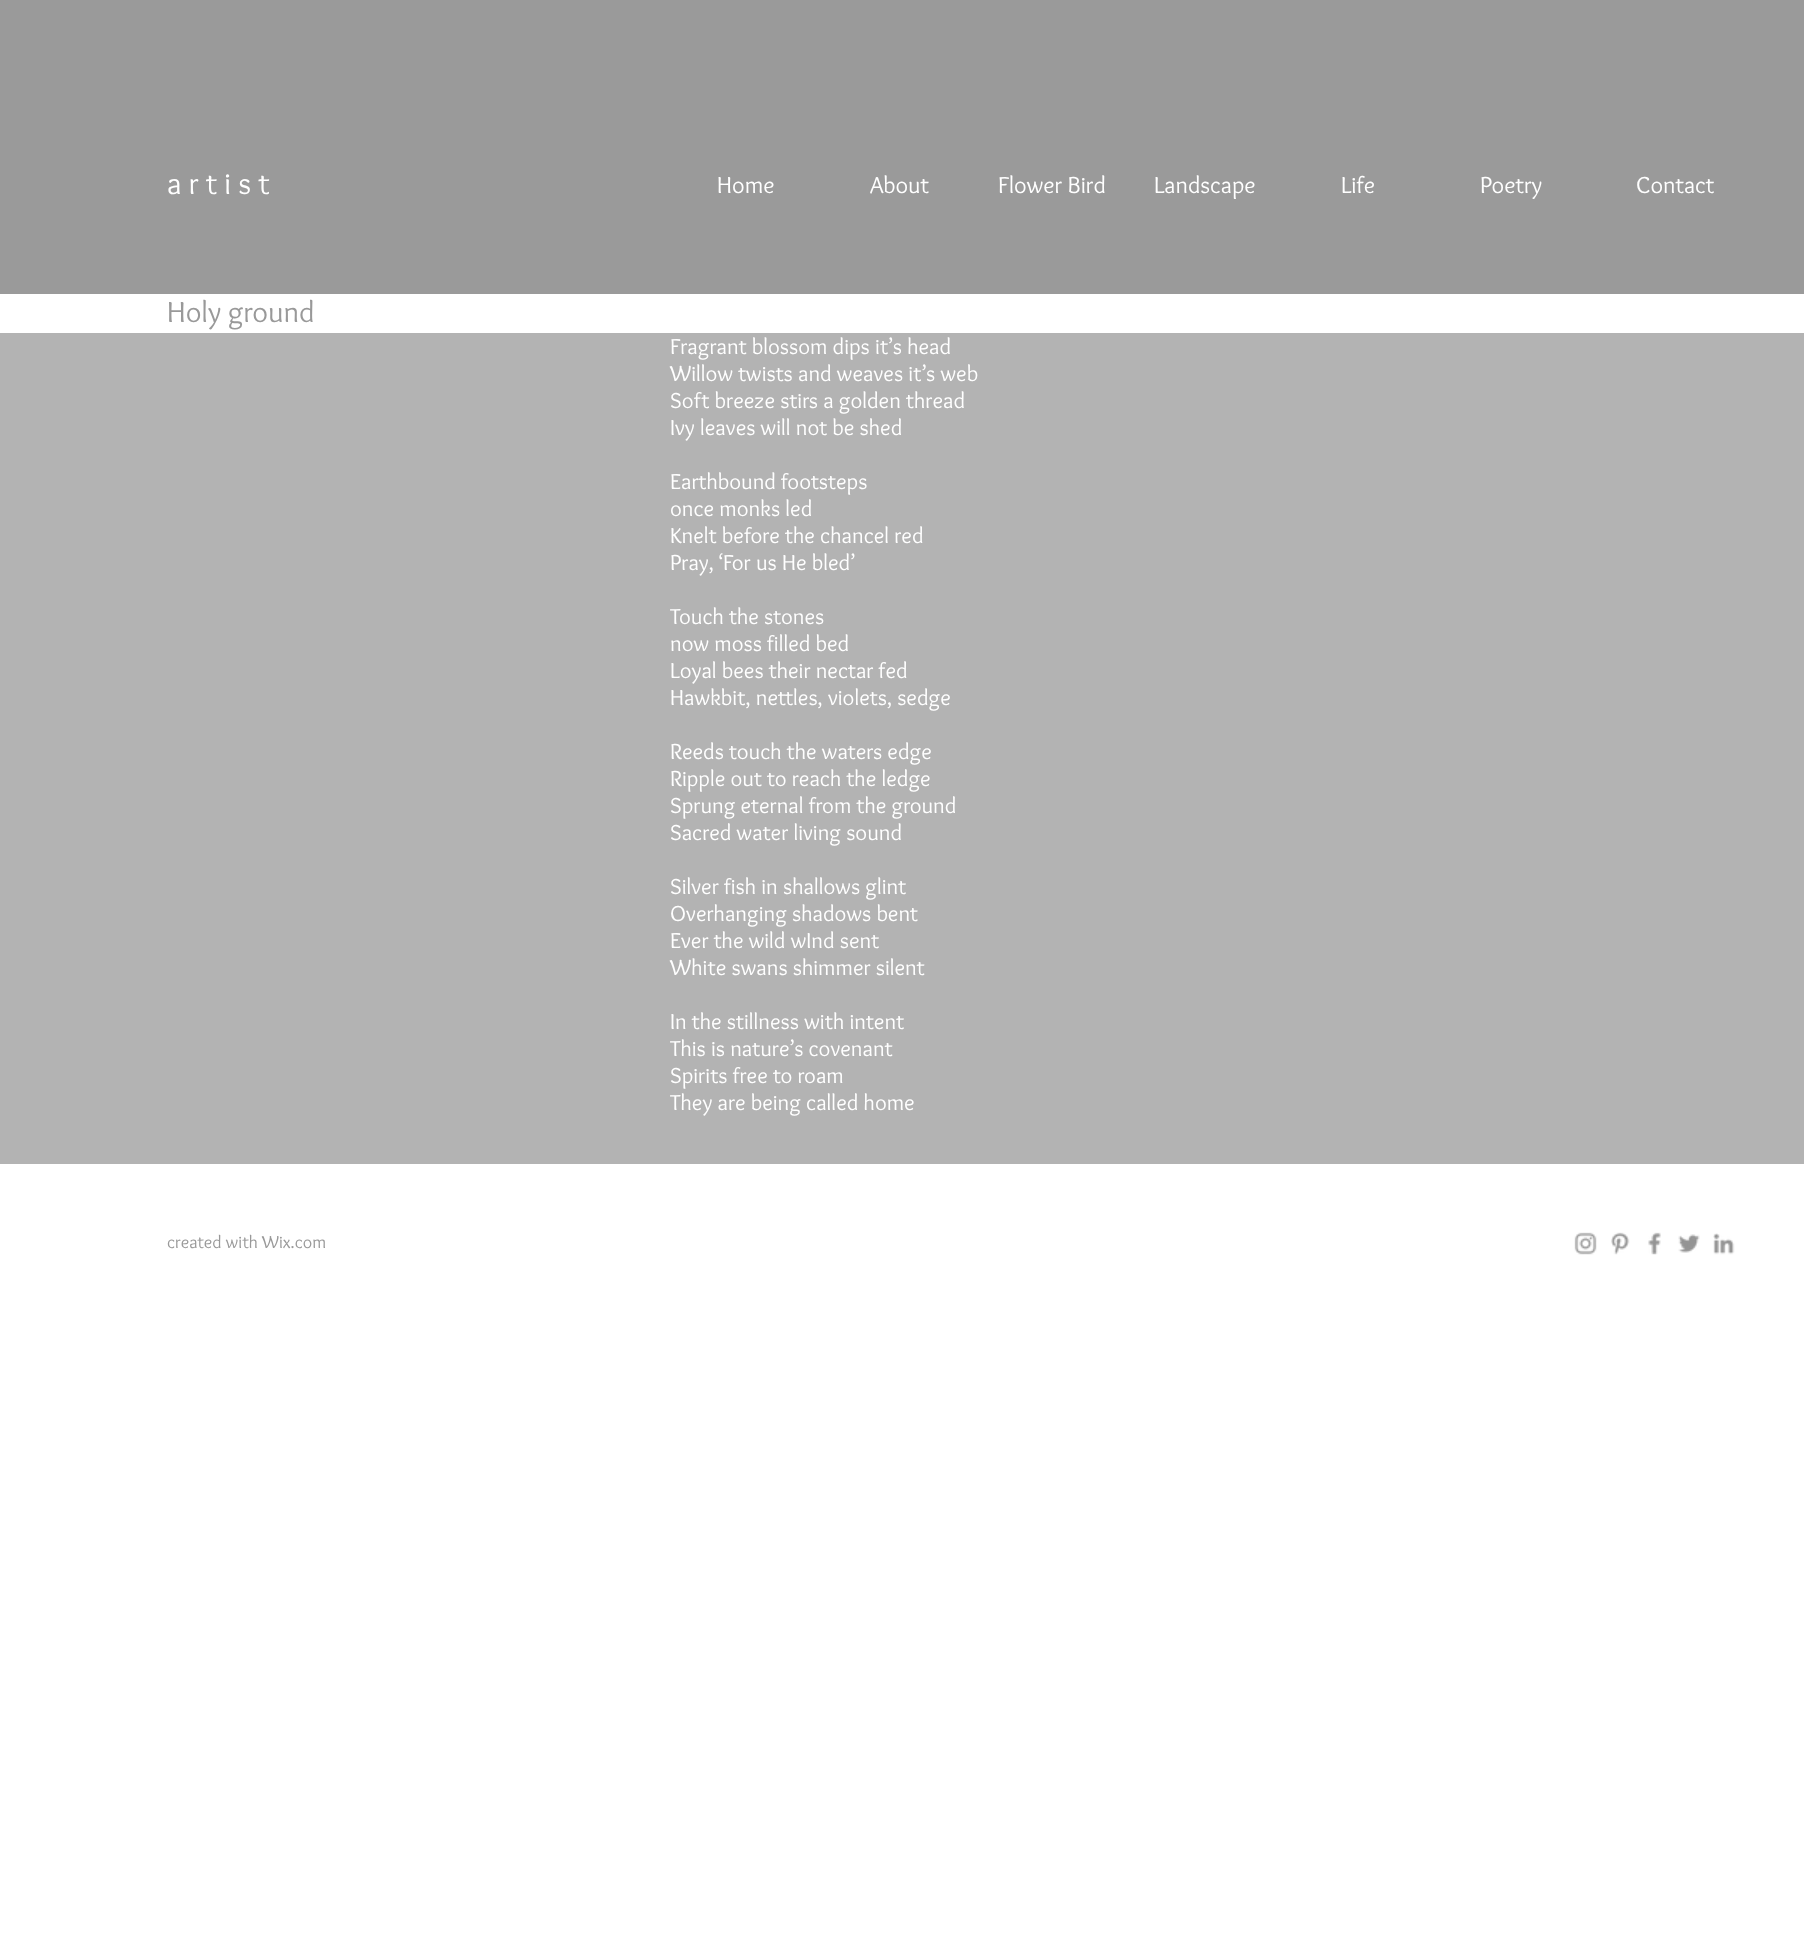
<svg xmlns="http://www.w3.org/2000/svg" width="1804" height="1944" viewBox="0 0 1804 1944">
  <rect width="100%" height="100%" fill="rgb(255,255,255)"/>
  <rect x="0" y="0" width="1804" height="294" fill="rgb(154,154,154)"/>
  <text x="167" y="194" font-family="Overlock" font-size="31.5" fill="rgb(255,255,255)">a r t i s t</text>
  <g font-family="Overlock" font-size="24" fill="rgb(255,255,255)">
    <text x="717" y="193">Home</text>
    <text x="870" y="193">About</text>
    <text x="998" y="193">Flower Bird</text>
    <text x="1154" y="193">Landscape</text>
    <text x="1341" y="193">Life</text>
    <text x="1480" y="193">Poetry</text>
    <text x="1636" y="193">Contact</text>
  </g>
  <text x="167" y="322" font-family="Overlock" font-size="30" fill="rgb(153,153,153)">Holy ground</text>
  <rect x="0" y="333" width="1804" height="831" fill="rgb(179,179,179)"/>
  <g font-family="Overlock" font-size="22.5" fill="rgb(255,255,255)">
    <text>
      <tspan x="670" y="354">Fragrant blossom dips it’s head</tspan>
      <tspan x="670" y="381">Willow twists and weaves it’s web</tspan>
      <tspan x="670" y="408">Soft breeze stirs a golden thread</tspan>
      <tspan x="670" y="435">Ivy leaves will not be shed</tspan>
    </text>
    <text>
      <tspan x="670" y="489">Earthbound footsteps</tspan>
      <tspan x="670" y="516">once monks led</tspan>
      <tspan x="670" y="543">Knelt before the chancel red</tspan>
      <tspan x="670" y="570">Pray, ‘For us He bled’</tspan>
    </text>
    <text>
      <tspan x="670" y="624">Touch the stones</tspan>
      <tspan x="670" y="651">now moss filled bed</tspan>
      <tspan x="670" y="678">Loyal bees their nectar fed</tspan>
      <tspan x="670" y="705">Hawkbit, nettles, violets, sedge</tspan>
    </text>
    <text>
      <tspan x="670" y="759">Reeds touch the waters edge</tspan>
      <tspan x="670" y="786">Ripple out to reach the ledge</tspan>
      <tspan x="670" y="813">Sprung eternal from the ground</tspan>
      <tspan x="670" y="840">Sacred water living sound</tspan>
    </text>
    <text>
      <tspan x="670" y="894">Silver fish in shallows glint</tspan>
      <tspan x="670" y="921">Overhanging shadows bent</tspan>
      <tspan x="670" y="948">Ever the wild wInd sent</tspan>
      <tspan x="670" y="975">White swans shimmer silent</tspan>
    </text>
    <text>
      <tspan x="670" y="1029">In the stillness with intent</tspan>
      <tspan x="670" y="1056">This is nature’s covenant</tspan>
      <tspan x="670" y="1083">Spirits free to roam</tspan>
      <tspan x="670" y="1110">They are being called home</tspan>
    </text>
  </g>
  <text x="167" y="1248" font-family="Overlock" font-size="18" fill="rgb(153,153,153)">created with Wix.com</text>
  <image x="1574" y="1232" width="23" height="23" href="pic1.png"/>
  <image x="1611" y="1232" width="19" height="23" href="pic2.png"/>
  <image x="1648" y="1232" width="13" height="23" href="pic3.png"/>
  <image x="1678" y="1234" width="22" height="19" href="pic4.png"/>
  <image x="1713" y="1233" width="22" height="22" href="pic5.png"/>
</svg>
